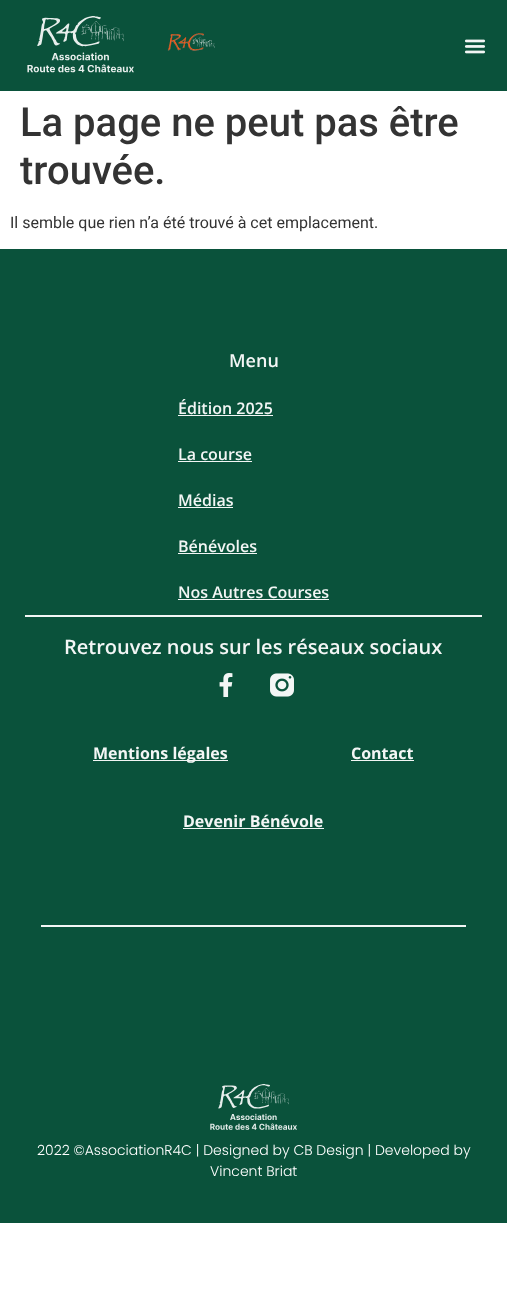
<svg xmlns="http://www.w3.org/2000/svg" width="507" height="1299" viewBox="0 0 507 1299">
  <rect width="100%" height="100%" fill="rgb(255,255,255)"/>
  <rect x="0" y="0" width="507" height="91" fill="rgb(10,82,59)"/>
  <image x="27" y="16" width="107" height="57" href="pic1.png"/>
  <image x="167" y="33" width="48" height="18" href="pic2.png"/>
  <image x="464" y="39" width="22" height="15" href="pic3.png"/>
  <g font-family="Roboto" font-size="40" font-weight="500" fill="rgb(51,51,51)">
    <text>
      <tspan x="20" y="136">La page ne peut pas être</tspan>
      <tspan x="20" y="184">trouvée.</tspan>
    </text>
  </g>
  <text x="10" y="228" font-family="Roboto" font-size="16" fill="rgb(51,51,51)">Il semble que rien n’a été trouvé à cet emplacement.</text>
  <rect x="0" y="249" width="507" height="974" fill="rgb(10,82,59)"/>
  <rect x="25" y="615" width="457" height="2" fill="rgb(243,246,245)"/>
  <text x="229" y="367" font-family="Open Sans" font-size="18" font-weight="600" fill="rgb(243,246,245)">Menu</text>
  <text x="178" y="414" font-family="Open Sans" font-size="16" font-weight="600" fill="rgb(243,246,245)">Édition 2025</text>
  <rect x="178" y="415" width="95" height="1" fill="rgb(243,246,245)"/>
  <text x="178" y="460" font-family="Open Sans" font-size="16" font-weight="600" fill="rgb(243,246,245)">La course</text>
  <rect x="178" y="461" width="74" height="1" fill="rgb(243,246,245)"/>
  <text x="178" y="506" font-family="Open Sans" font-size="16" font-weight="600" fill="rgb(243,246,245)">Médias</text>
  <rect x="178" y="507" width="55" height="1" fill="rgb(243,246,245)"/>
  <text x="178" y="552" font-family="Open Sans" font-size="16" font-weight="600" fill="rgb(243,246,245)">Bénévoles</text>
  <rect x="178" y="553" width="79" height="1" fill="rgb(243,246,245)"/>
  <text x="178" y="598" font-family="Open Sans" font-size="16" font-weight="600" fill="rgb(243,246,245)">Nos Autres Courses</text>
  <rect x="178" y="599" width="151" height="1" fill="rgb(243,246,245)"/>
  <text x="64" y="654" font-family="Open Sans" font-size="20" font-weight="600" fill="rgb(243,246,245)">Retrouvez nous sur les réseaux sociaux</text>
  <image x="219" y="673" width="14" height="24" href="pic4.png"/>
  <image x="270" y="673" width="24" height="24" href="pic5.png"/>
  <rect x="93" y="760" width="135" height="1" fill="rgb(243,246,245)"/>
  <g font-family="Open Sans" font-size="16" font-weight="bold" fill="rgb(243,246,245)">
    <text x="93" y="759">Mentions légales</text>
    <text x="351" y="759">Contact</text>
  </g>
  <rect x="351" y="760" width="63" height="1" fill="rgb(243,246,245)"/>
  <text x="183" y="827" font-family="Open Sans" font-size="16" font-weight="bold" fill="rgb(243,246,245)">Devenir Bénévole</text>
  <rect x="183" y="828" width="141" height="1" fill="rgb(243,246,245)"/>
  <rect x="41" y="925" width="425" height="2" fill="rgb(243,246,245)"/>
  <image x="210" y="1084" width="87" height="46" href="pic6.png"/>
  <g font-family="Poppins" font-size="14" font-weight="300" fill="rgb(255,255,255)">
    <text x="37" y="1155">2022 ©AssociationR4C | Designed by CB Design | Developed by</text>
    <text x="210" y="1176">Vincent Briat</text>
  </g>
</svg>
